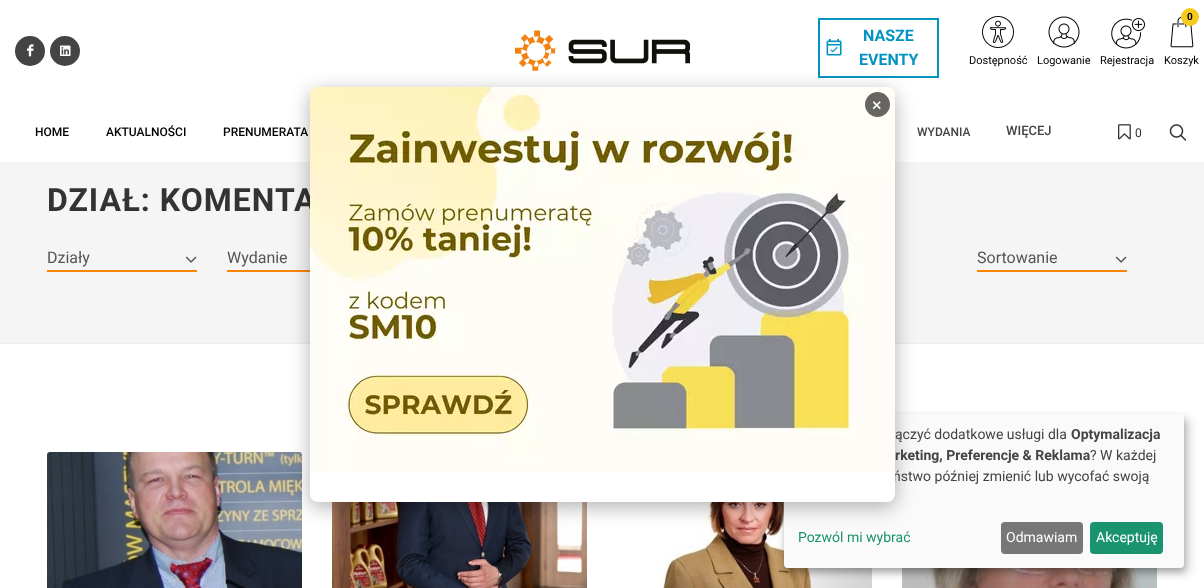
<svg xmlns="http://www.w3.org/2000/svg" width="1204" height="588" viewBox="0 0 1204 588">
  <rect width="100%" height="100%" fill="rgb(255,255,255)"/>
  <rect x="0" y="162" width="1204" height="181" fill="rgb(245,245,245)"/>
  <circle cx="30" cy="51" r="15" fill="rgb(68,68,68)"/>
  <image x="27" y="44" width="7" height="13" href="pic1.png"/>
  <circle cx="65" cy="51" r="15" fill="rgb(68,68,68)"/>
  <image x="60" y="45" width="11" height="11" href="pic2.png"/>
  <image x="515" y="30" width="175" height="41" href="pic3.png"/>
  <rect x="819" y="19" width="119" height="58" fill="none" stroke="rgb(1,148,193)" stroke-width="2"/>
  <image x="826" y="38" width="16" height="18" href="pic4.png"/>
  <g font-family="Roboto" font-size="16" font-weight="bold" fill="rgb(1,148,193)">
    <text x="863" y="41">NASZE</text>
    <text x="859" y="65">EVENTY</text>
  </g>
  <image x="982" y="16" width="32" height="32" href="pic5.png"/>
  <text x="969" y="64" font-family="Roboto" font-size="11" fill="rgb(0,0,0)">Dostępność</text>
  <image x="1048" y="16" width="32" height="32" href="pic6.png"/>
  <text x="1037" y="64" font-family="Roboto" font-size="11" fill="rgb(0,0,0)">Logowanie</text>
  <image x="1111" y="18" width="34" height="31" href="pic7.png"/>
  <text x="1100" y="64" font-family="Roboto" font-size="11" fill="rgb(0,0,0)">Rejestracja</text>
  <image x="1170" y="16" width="24" height="32" href="pic8.png"/>
  <circle cx="1190" cy="17" r="9" fill="rgb(246,203,29)"/>
  <text x="1187" y="20" font-family="Roboto" font-size="10" font-weight="bold" fill="rgb(0,0,0)">0</text>
  <text x="1164" y="64" font-family="Roboto" font-size="11" fill="rgb(0,0,0)">Koszyk</text>
  <g font-family="Roboto" font-size="12" font-weight="500" fill="rgb(0,0,0)">
    <text x="35" y="136">HOME</text>
    <text x="106" y="136">AKTUALNOŚCI</text>
    <text x="223" y="136">PRENUMERATA</text>
  </g>
  <text x="917" y="136" font-family="Roboto" font-size="12" font-weight="500" fill="rgb(68,68,68)">WYDANIA</text>
  <text x="1006" y="135" font-family="Roboto" font-size="13" font-weight="500" fill="rgb(68,68,68)">WIĘCEJ</text>
  <image x="1118" y="124" width="13" height="16" href="pic9.png"/>
  <text x="1135" y="137" font-family="Roboto" font-size="12" fill="rgb(51,51,51)">0</text>
  <image x="1169" y="124" width="18" height="17" href="pic10.png"/>
  <rect x="0" y="343" width="1204" height="1" fill="rgb(238,238,238)"/>
  <text x="47" y="211" font-family="Roboto" font-size="32" font-weight="bold" letter-spacing="1" fill="rgb(51,51,51)">DZIAŁ: KOMENTA</text>
  <rect x="47" y="270" width="150" height="2" fill="rgb(251,133,0)"/>
  <text x="47" y="263" font-family="Roboto" font-size="16" fill="rgb(85,85,85)">Działy</text>
  <image x="185" y="256" width="12" height="7" href="pic11.png"/>
  <rect x="227" y="270" width="83" height="2" fill="rgb(251,133,0)"/>
  <text x="227" y="263" font-family="Roboto" font-size="16" fill="rgb(85,85,85)">Wydanie</text>
  <rect x="977" y="270" width="150" height="2" fill="rgb(251,133,0)"/>
  <text x="977" y="263" font-family="Roboto" font-size="16" fill="rgb(85,85,85)">Sortowanie</text>
  <image x="1115" y="256" width="12" height="7" href="pic11.png"/>
  <image x="47" y="452" width="255" height="136" href="pic12.png"/>
  <image x="332" y="502" width="255" height="86" href="pic13.png"/>
  <image x="660" y="502" width="212" height="86" href="pic14.png"/>
  <image x="902" y="568" width="255" height="20" href="pic15.png"/>
  <rect x="789" y="419" width="400" height="154" rx="4" fill="rgba(0,0,0,0.19)" filter="blur(5px)"/>
  <rect x="784" y="418" width="400" height="154" rx="4" fill="rgba(0,0,0,0.2)" filter="blur(3px)"/>
  <rect x="784" y="414" width="400" height="154" rx="4" fill="rgb(250,250,250)"/>
  <rect x="310" y="92" width="585" height="415" rx="8" fill="rgba(0,0,0,0.3)" filter="blur(10px)"/>
  <text x="893" y="481" font-family="Roboto" font-size="14" fill="rgb(68,68,68)">ństwo później zmienić lub wycofać swoją</text>
  <rect x="310" y="87" width="585" height="415" rx="8" fill="rgb(255,255,255)"/>
  <image x="310" y="87" width="585" height="385" href="pic16.png"/>
  <circle cx="877.5" cy="104.5" r="12.5" fill="rgb(102,101,98)"/>
  <text x="872" y="111" font-family="Roboto" font-size="18" fill="rgb(255,255,255)">×</text>
  <text x="895" y="439" font-family="Roboto" font-size="14" fill="rgb(68,68,68)">ączyć dodatkowe usługi dla</text>
  <g font-family="Roboto" font-size="14" font-weight="bold" fill="rgb(68,68,68)">
    <text x="1071" y="439">Optymalizacja</text>
    <text x="895" y="460">rketing, Preferencje &amp; Reklama</text>
  </g>
  <text x="1090" y="460" font-family="Roboto" font-size="14" fill="rgb(68,68,68)">? W każdej</text>
  <text x="798" y="542" font-family="Roboto" font-size="14" fill="rgb(26,147,111)">Pozwól mi wybrać</text>
  <rect x="1001" y="522" width="82" height="32" rx="4" fill="rgb(119,119,119)"/>
  <text x="1006" y="542" font-family="Roboto" font-size="14" fill="rgb(255,255,255)">Odmawiam</text>
  <rect x="1090" y="522" width="73" height="32" rx="4" fill="rgb(26,147,111)"/>
  <text x="1096" y="542" font-family="Roboto" font-size="14" fill="rgb(255,255,255)">Akceptuję</text>
</svg>
